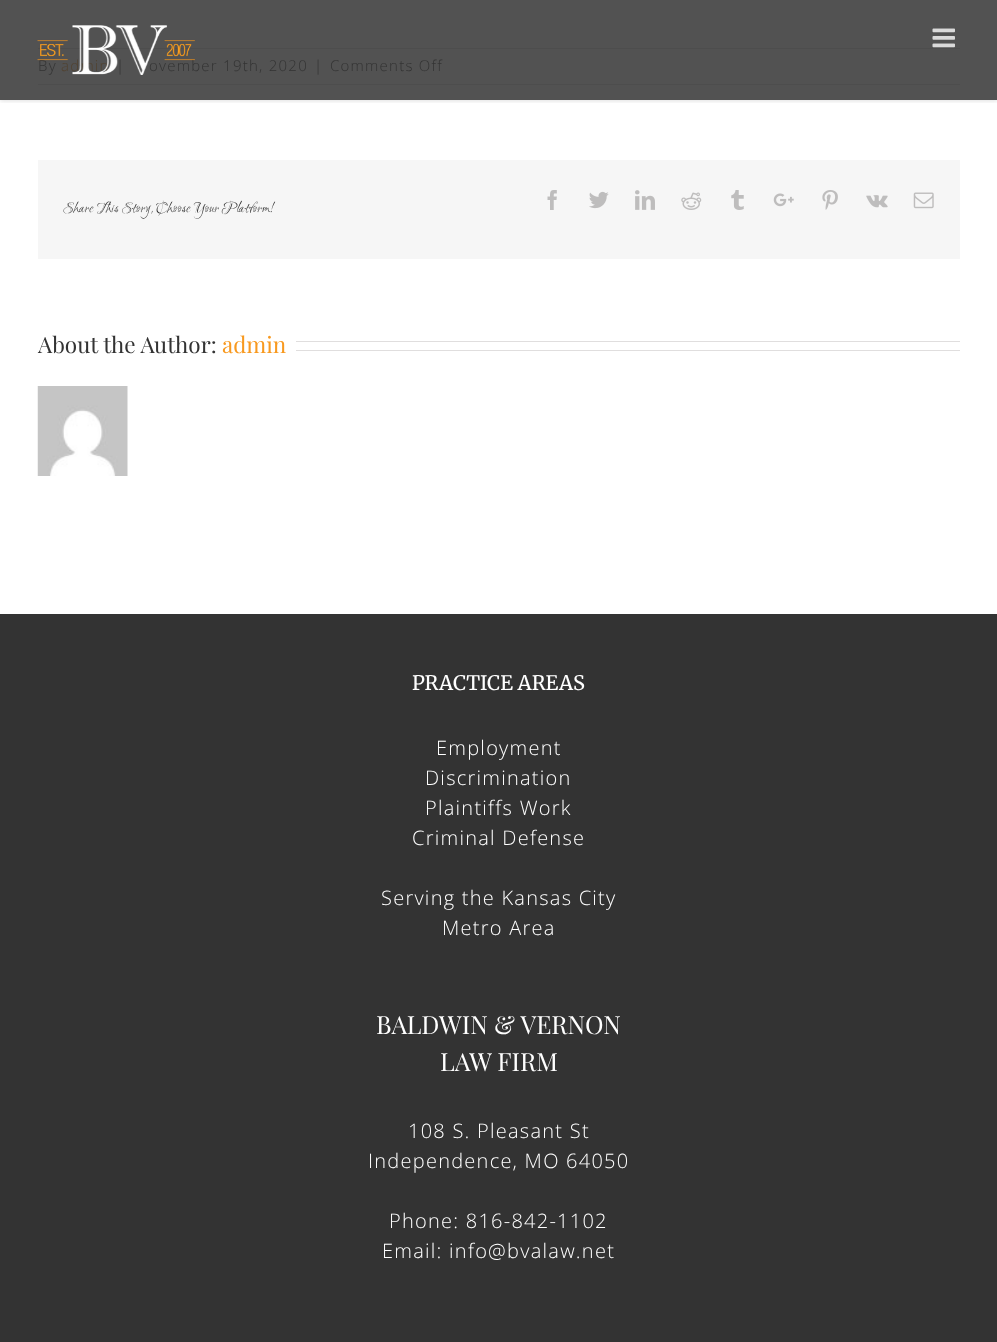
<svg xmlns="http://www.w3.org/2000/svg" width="997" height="1342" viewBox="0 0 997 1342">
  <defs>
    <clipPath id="clip1"><rect x="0" y="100" width="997" height="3"/></clipPath>
  </defs>
  <rect width="100%" height="100%" fill="rgb(255,255,255)"/>
  <rect x="0" y="0" width="997" height="100" fill="rgb(82,82,82)"/>
  <rect x="38" y="48" width="922" height="1" fill="rgb(77,77,77)"/>
  <rect x="38" y="84" width="922" height="1" fill="rgb(77,77,77)"/>
  <g clip-path="url(#clip1)">
    <rect x="0" y="1" width="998" height="100" fill="rgba(0,0,0,0.12)" filter="blur(2px)"/>
  </g>
  <text x="38" y="71" font-family="Open Sans" font-size="15" font-weight="300" letter-spacing="1.25" fill="rgb(51,51,51)">By</text>
  <text x="61" y="71" font-family="Open Sans" font-size="15" font-weight="300" letter-spacing="1.25" fill="rgb(81,66,48)">admin</text>
  <g font-family="Open Sans" font-size="15" font-weight="300" letter-spacing="1.25" fill="rgb(51,51,51)">
    <text x="116" y="71">|</text>
    <text x="149" y="71">ovember 19th, 2020</text>
  </g>
  <image x="37" y="25" width="158" height="50" href="pic1.png"/>
  <image x="932" y="28" width="23" height="20" href="pic2.png"/>
  <g font-family="Open Sans" font-size="15" font-weight="300" letter-spacing="1.25" fill="rgb(51,51,51)">
    <text x="314" y="71">|</text>
    <text x="330" y="71">Comments Off</text>
  </g>
  <rect x="38" y="160" width="922" height="99" fill="rgb(246,246,246)"/>
  <text x="63" y="212" font-family="Ruthie" font-size="16.25" fill="rgb(51,51,51)">Share This Story, Choose Your Platform!</text>
  <image x="547" y="190" width="10" height="20" href="pic3.png"/>
  <image x="589" y="191" width="20" height="18" href="pic4.png"/>
  <image x="635" y="190" width="20" height="20" href="pic5.png"/>
  <image x="681" y="192" width="21" height="18" href="pic6.png"/>
  <image x="731" y="190" width="13" height="20" href="pic7.png"/>
  <image x="773" y="193" width="21" height="14" href="pic8.png"/>
  <image x="822" y="190" width="16" height="20" href="pic9.png"/>
  <image x="866" y="195" width="22" height="13" href="pic10.png"/>
  <image x="913" y="192" width="21" height="17" href="pic11.png"/>
  <text x="38" y="353" font-family="Playfair Display" font-size="22.5" fill="rgb(51,51,51)">About the Author:</text>
  <text x="222" y="353" font-family="Playfair Display" font-size="22.5" fill="rgb(248,153,31)">admin</text>
  <rect x="296" y="341" width="664" height="1" fill="rgb(224,222,222)"/>
  <rect x="296" y="350" width="664" height="1" fill="rgb(224,222,222)"/>
  <image x="37" y="386" width="91" height="90" href="pic12.png"/>
  <rect x="0" y="614" width="997" height="728" fill="rgb(51,51,51)"/>
  <text x="412" y="690" font-family="Merriweather" font-size="20" font-weight="300" fill="rgb(255,255,255)">PRACTICE AREAS</text>
  <g font-family="Open Sans" font-size="20" font-weight="300" letter-spacing="1.25" fill="rgb(255,255,255)">
    <text x="436" y="755">Employment</text>
    <text>
      <tspan x="425" y="785">Discrimination</tspan>
      <tspan x="425" y="815">Plaintiffs Work</tspan>
    </text>
    <text x="412" y="845">Criminal Defense</text>
    <text x="381" y="905">Serving the Kansas City</text>
    <text x="442" y="935">Metro Area</text>
  </g>
  <g font-family="Playfair Display" font-size="25" fill="rgb(255,255,255)">
    <text x="376" y="1034">BALDWIN &amp; VERNON</text>
    <text x="440" y="1071">LAW FIRM</text>
  </g>
  <g font-family="Open Sans" font-size="20" font-weight="300" letter-spacing="1.25" fill="rgb(255,255,255)">
    <text x="408" y="1138">108 S. Pleasant St</text>
    <text x="368" y="1168">Independence, MO 64050</text>
    <text x="389" y="1228">Phone: 816-842-1102</text>
    <text x="382" y="1258">Email: info@bvalaw.net</text>
  </g>
</svg>
